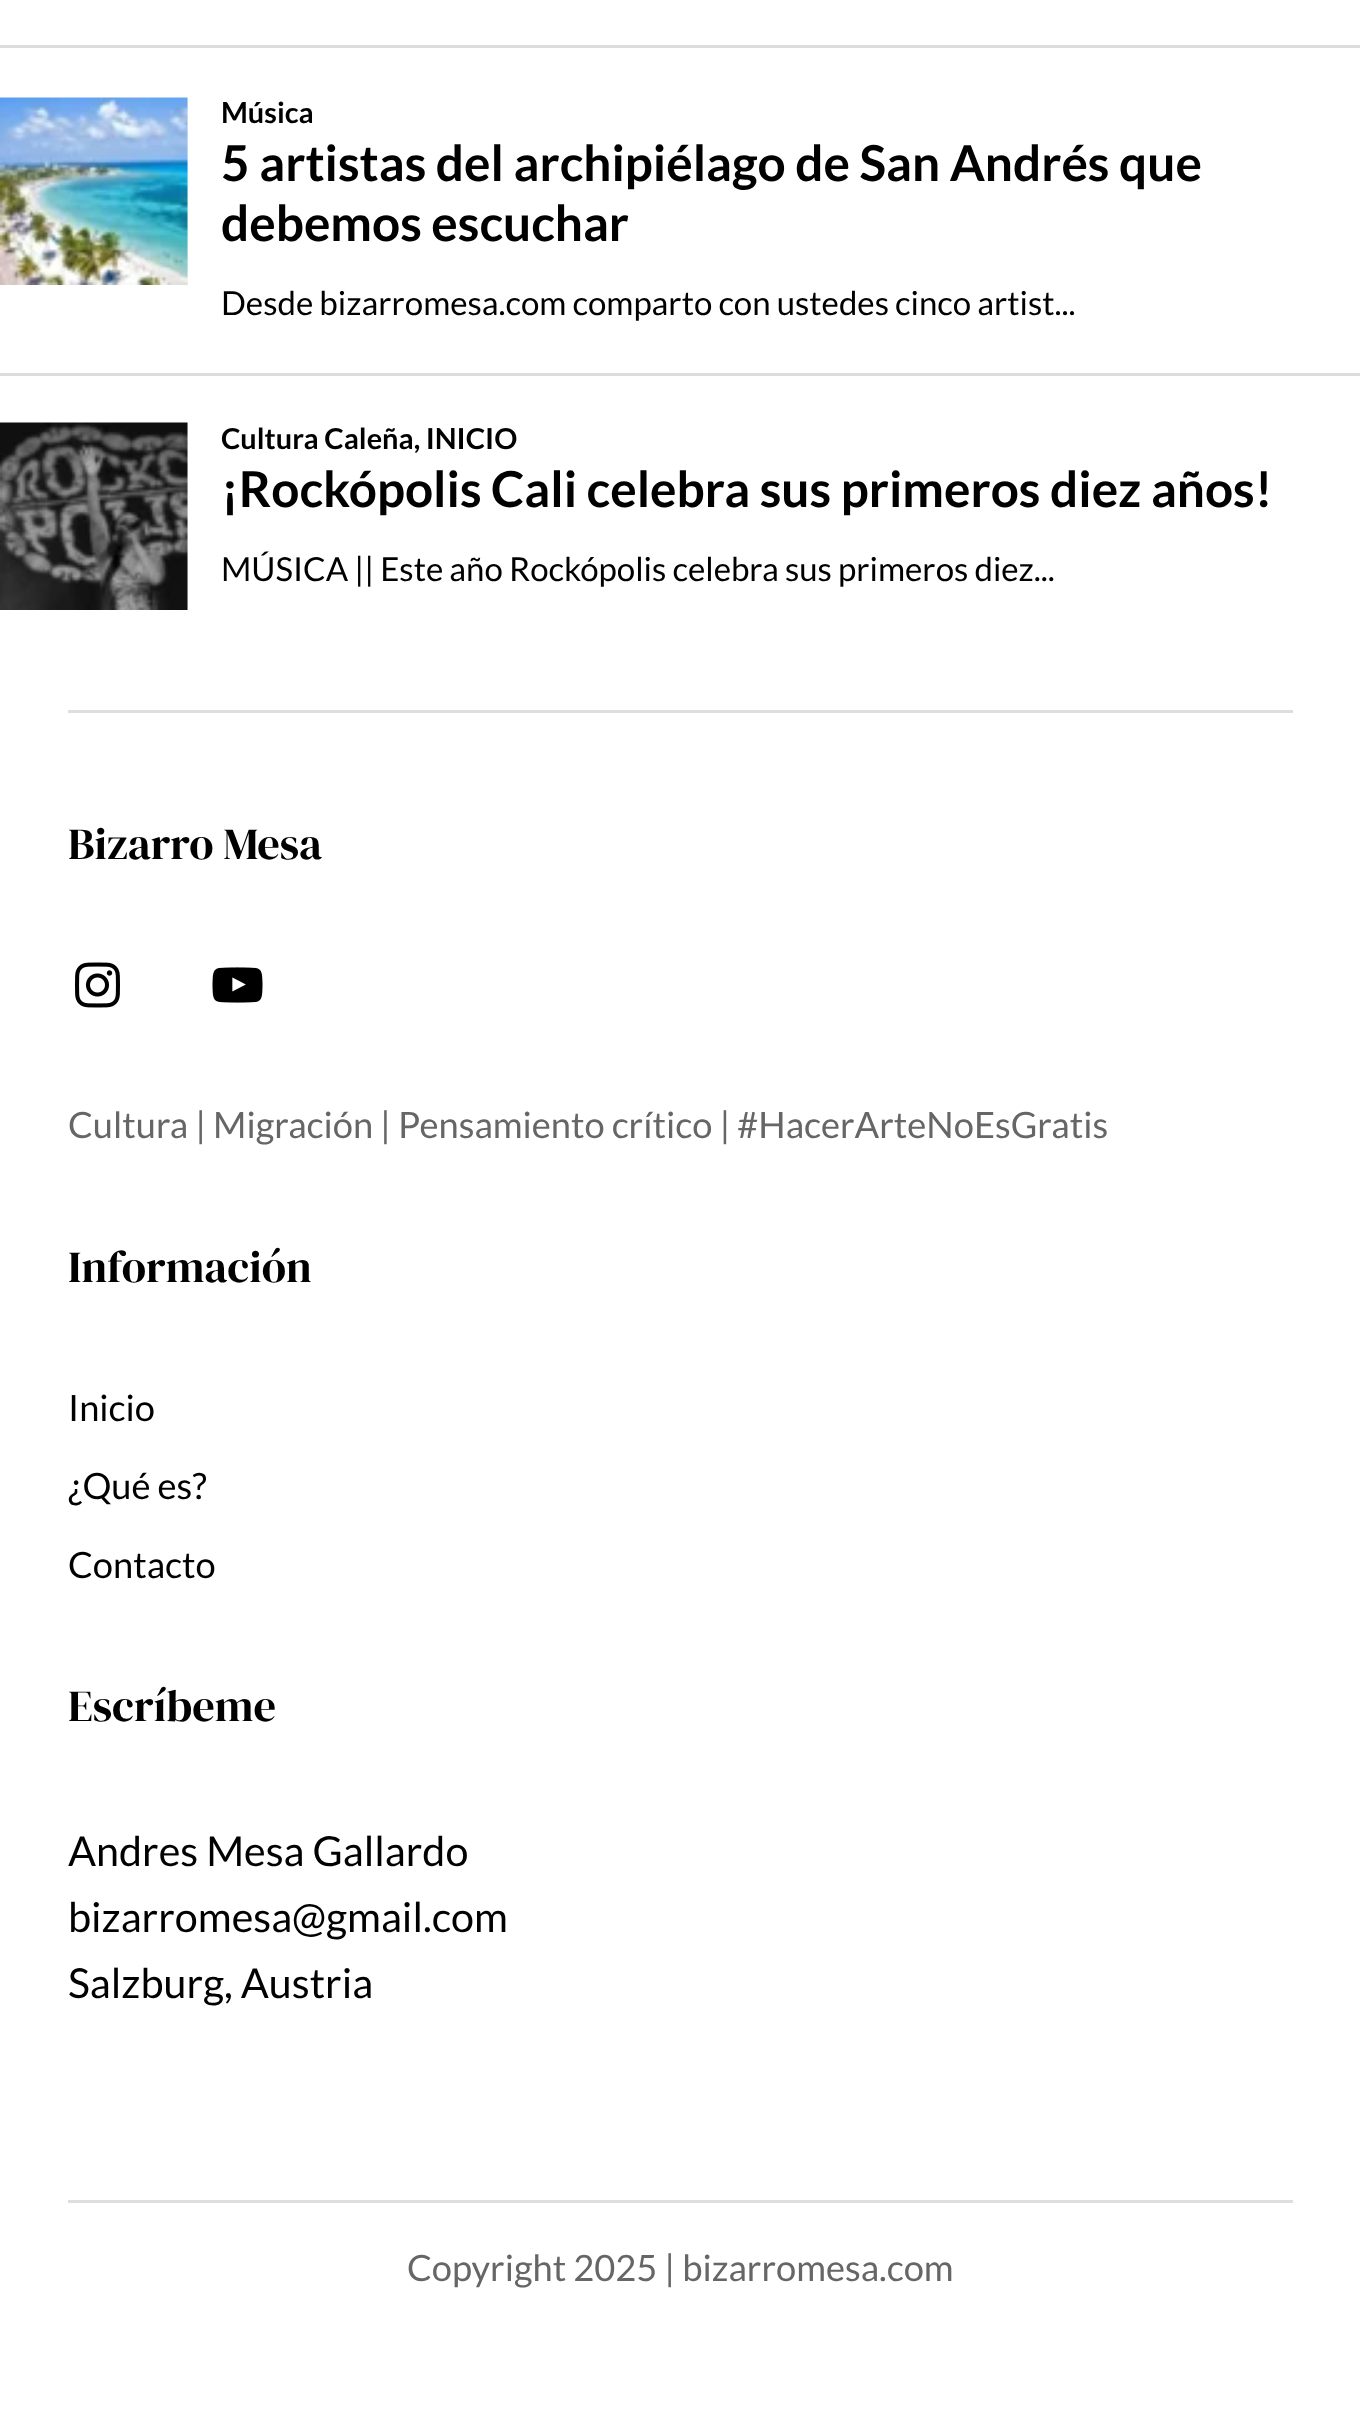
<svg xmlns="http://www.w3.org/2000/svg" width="1360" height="2433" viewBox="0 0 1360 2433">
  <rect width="100%" height="100%" fill="rgb(255,255,255)"/>
  <rect x="0" y="45" width="1360" height="3" fill="rgb(221,221,221)"/>
  <rect x="0" y="373" width="1360" height="3" fill="rgb(221,221,221)"/>
  <rect x="187" y="98" width="1" height="187" fill="rgb(240,240,240)"/>
  <image x="0" y="97" width="188" height="188" href="pic1.png"/>
  <text x="221" y="123" font-family="Lato" font-size="28.9" font-weight="bold" fill="rgb(0,0,0)">Música</text>
  <g font-family="Lato" font-size="49.5" font-weight="bold" fill="rgb(0,0,0)">
    <text>
      <tspan x="221" y="181">5 artistas del archipiélago de San Andrés que</tspan>
      <tspan x="221" y="241">debemos escuchar</tspan>
    </text>
  </g>
  <text x="221" y="315" word-spacing="-0.25" font-family="Lato" font-size="33" fill="rgb(0,0,0)">Desde bizarromesa.com comparto con ustedes cinco artist...</text>
  <rect x="187" y="423" width="1" height="187" fill="rgb(240,240,240)"/>
  <image x="0" y="422" width="188" height="188" href="pic2.png"/>
  <text x="221" y="449" font-family="Lato" font-size="28.9" font-weight="bold" fill="rgb(0,0,0)">Cultura Caleña, INICIO</text>
  <text x="221" y="507" font-family="Lato" font-size="49.5" font-weight="bold" fill="rgb(0,0,0)">¡Rockópolis Cali celebra sus primeros diez años!</text>
  <text x="221" y="581" word-spacing="-0.25" font-family="Lato" font-size="33" fill="rgb(0,0,0)">MÚSICA || Este año Rockópolis celebra sus primeros diez...</text>
  <rect x="68" y="710" width="1225" height="3" fill="rgb(222,222,222)"/>
  <text x="68" y="859" font-family="DM Serif Display" font-size="44.5" fill="rgb(0,0,0)">Bizarro Mesa</text>
  <image x="75" y="962" width="45" height="46" href="pic3.png"/>
  <image x="212" y="967" width="51" height="36" href="pic4.png"/>
  <text x="68" y="1138" font-family="Lato" font-size="36.25" fill="rgb(102,102,102)">Cultura | Migración | Pensamiento crítico | #HacerArteNoEsGratis</text>
  <text x="68" y="1282" font-family="DM Serif Display" font-size="44.5" fill="rgb(0,0,0)">Información</text>
  <g font-family="Lato" font-size="36.25" fill="rgb(0,0,0)">
    <text x="68" y="1421">Inicio</text>
    <text x="68" y="1499">¿Qué es?</text>
    <text x="68" y="1578">Contacto</text>
  </g>
  <text x="68" y="1721" font-family="DM Serif Display" font-size="44.5" fill="rgb(0,0,0)">Escríbeme</text>
  <g font-family="Lato" font-size="41.25" fill="rgb(0,0,0)">
    <text>
      <tspan x="68" y="1866">Andres Mesa Gallardo</tspan>
      <tspan x="68" y="1932">bizarromesa@gmail.com</tspan>
      <tspan x="68" y="1998">Salzburg, Austria</tspan>
    </text>
  </g>
  <rect x="68" y="2200" width="1225" height="3" fill="rgb(222,222,222)"/>
  <text x="407" y="2281" font-family="Lato" font-size="36.25" fill="rgb(102,102,102)">Copyright 2025 | bizarromesa.com</text>
</svg>
